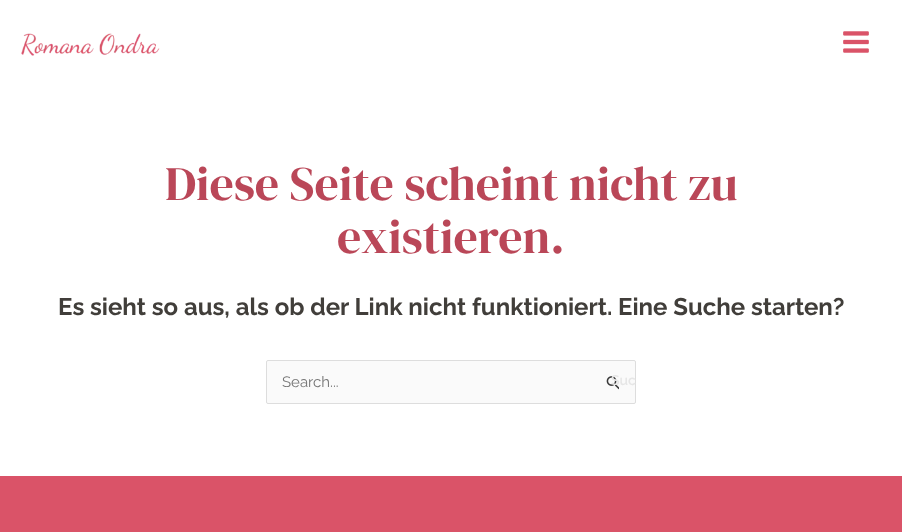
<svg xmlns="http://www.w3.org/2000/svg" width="902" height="532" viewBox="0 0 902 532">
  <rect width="100%" height="100%" fill="rgb(255,255,255)"/>
  <image x="21" y="33" width="139" height="23" href="pic1.png"/>
  <image x="843" y="31" width="26" height="22" href="pic2.png"/>
  <g font-family="DM Serif Display" font-size="48" fill="rgb(186,71,88)">
    <text x="165" y="200">Diese Seite scheint nicht zu</text>
    <text x="337" y="253">existieren.</text>
  </g>
  <text x="58" y="315" font-family="Raleway" font-size="24" font-weight="100" fill="rgb(65,62,58)">Es sieht so aus, als ob der Link nicht funktioniert. Eine Suche starten?</text>
  <rect x="266.5" y="360.5" width="369" height="43" rx="1.5" fill="rgb(250,250,250)" stroke="rgb(221,221,221)"/>
  <text x="282" y="387" font-family="'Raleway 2'" font-size="15" font-weight="100" fill="rgb(117,117,117)">Search...</text>
  <image x="606" y="376" width="13" height="14" href="pic3.png"/>
  <text x="611" y="385" font-family="'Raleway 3'" font-size="14" font-weight="100" fill="rgb(230,230,230)">Suc</text>
  <rect x="0" y="476" width="902" height="56" fill="rgb(218,83,104)"/>
</svg>
